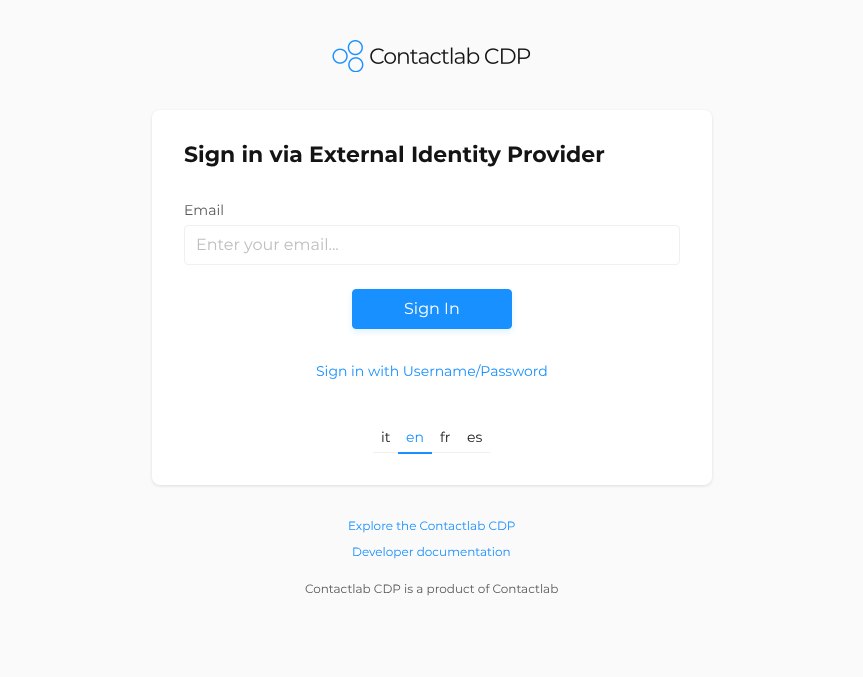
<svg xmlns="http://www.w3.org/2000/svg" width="863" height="677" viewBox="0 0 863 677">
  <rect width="100%" height="100%" fill="rgb(250,250,250)"/>
  <image x="332" y="40" width="199" height="32" href="pic1.png"/>
  <rect x="152" y="111" width="560" height="375" rx="8" fill="rgba(0,20,32,0.12)" filter="blur(1.5px)"/>
  <rect x="152" y="110" width="560" height="375" rx="8" fill="rgb(255,255,255)"/>
  <text x="184" y="162" font-family="Montserrat" font-size="22" font-weight="bold" fill="rgb(20,20,20)">Sign in via External Identity Provider</text>
  <text x="184" y="215" font-family="Montserrat" font-size="14" fill="rgb(89,89,89)">Email</text>
  <rect x="184.5" y="225.5" width="495" height="39" rx="3.5" fill="none" stroke="rgb(240,240,240)"/>
  <text x="196" y="250" font-family="Montserrat" font-size="16" fill="rgb(191,191,191)">Enter your email...</text>
  <rect x="352" y="292" width="160" height="40" rx="4" fill="rgba(3,145,236,0.12)" filter="blur(3px)"/>
  <rect x="352.5" y="289.5" width="159" height="39" rx="3.5" fill="rgb(24,144,255)" stroke="rgb(24,144,255)"/>
  <text x="404" y="314" font-family="Montserrat" font-size="16" fill="rgb(255,255,255)">Sign In</text>
  <text x="316" y="376" font-family="Montserrat" font-size="14" fill="rgb(24,144,255)">Sign in with Username/Password</text>
  <rect x="373" y="452" width="117" height="1" fill="rgb(240,240,240)"/>
  <text x="381" y="442" font-family="Montserrat" font-size="14" fill="rgb(20,20,20)">it</text>
  <rect x="398" y="452" width="34" height="2" fill="rgb(24,144,255)"/>
  <text x="406" y="442" font-family="Montserrat" font-size="14" fill="rgb(24,144,255)">en</text>
  <g font-family="Montserrat" font-size="14" fill="rgb(20,20,20)">
    <text x="440" y="442">fr</text>
    <text x="467" y="442">es</text>
  </g>
  <g font-family="Montserrat" font-size="12" fill="rgb(24,144,255)">
    <text x="348" y="530">Explore the Contactlab CDP</text>
    <text x="352" y="556">Developer documentation</text>
  </g>
  <text x="305" y="593" font-family="Montserrat" font-size="12" fill="rgb(89,89,89)">Contactlab CDP is a product of Contactlab</text>
</svg>
